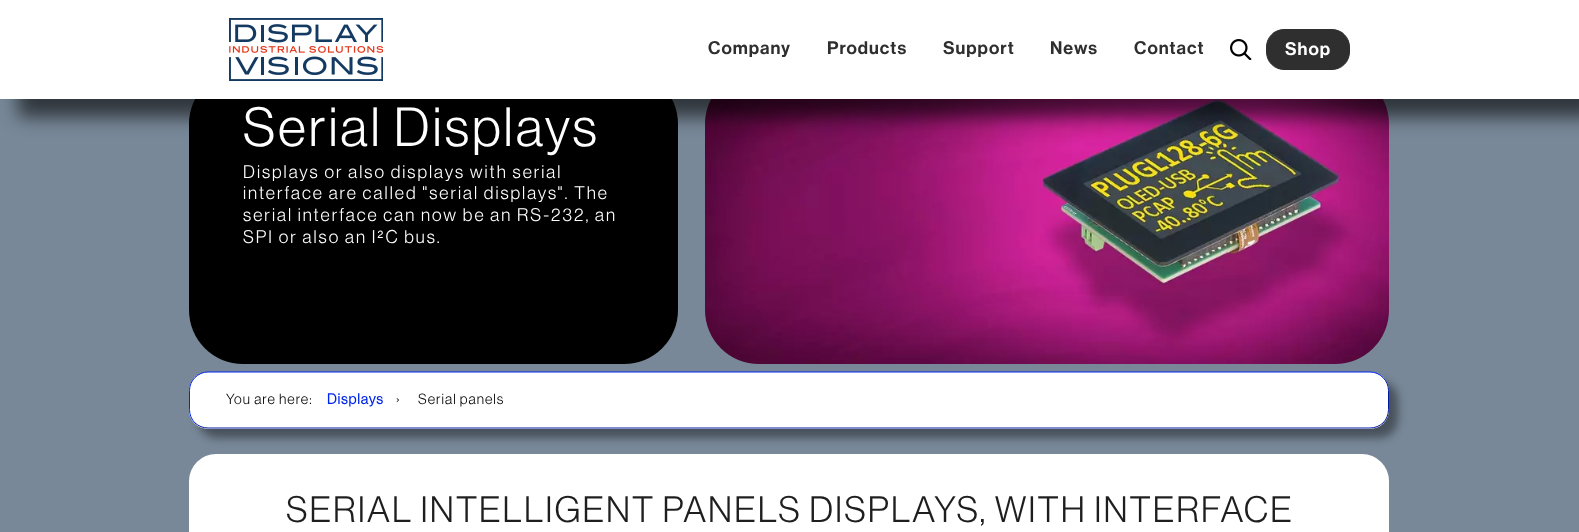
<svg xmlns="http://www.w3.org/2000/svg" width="1579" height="532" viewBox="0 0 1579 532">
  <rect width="100%" height="100%" fill="rgb(120,136,152)"/>
  <rect x="189" y="70" width="489" height="294" rx="54" fill="rgb(0,0,0)"/>
  <image x="705" y="99" width="684" height="265" href="pic3.png"/>
  <rect x="18" y="18" width="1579" height="99" fill="rgba(0,0,0,0.6)" filter="blur(9px)"/>
  <rect x="0" y="0" width="1579" height="99" fill="rgb(255,255,255)"/>
  <image x="229" y="18" width="154" height="63" href="pic1.png"/>
  <g font-family="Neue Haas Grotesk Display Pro" font-size="18" font-weight="600" letter-spacing="1" fill="rgb(47,47,47)">
    <text x="708" y="54">Company</text>
    <text x="827" y="54">Products</text>
    <text x="943" y="54">Support</text>
    <text x="1050" y="54">News</text>
    <text x="1134" y="54">Contact</text>
  </g>
  <image x="1230" y="39" width="22" height="21" href="pic2.png"/>
  <rect x="1266.5" y="29.5" width="83" height="40" rx="17.5" fill="rgb(47,47,47)" stroke="rgb(47,47,47)"/>
  <text x="1285" y="55" font-family="Neue Haas Grotesk Display Pro" font-size="18" font-weight="600" letter-spacing="1" fill="rgb(255,255,255)">Shop</text>
  <text x="243" y="146" font-family="Neue Haas Grotesk Display Pro" font-size="54" font-weight="300" letter-spacing="3" fill="rgb(255,255,255)">Serial Displays</text>
  <g font-family="Neue Haas Grotesk Display Pro" font-size="18" font-weight="300" letter-spacing="2" fill="rgb(255,255,255)">
    <text>
      <tspan x="243" y="178">Displays or also displays with serial</tspan>
      <tspan x="243" y="199">interface are called "serial displays". The</tspan>
      <tspan x="243" y="221">serial interface can now be an RS-232, an</tspan>
      <tspan x="243" y="243">SPI or also an I²C bus.</tspan>
    </text>
  </g>
  <rect x="198" y="381" width="1200" height="57" rx="19" fill="rgba(0,0,0,0.4)" filter="blur(4.5px)"/>
  <rect x="189" y="372" width="1200" height="57" rx="19" fill="rgb(255,255,255)"/>
  <path d="M1383 377.5C1386.5 381 1388.5 385.5 1388.5 390.5V409.5C1388.5 414.5 1386.5 419.5 1383 423C1379.5 426 1375 428 1370 428H208C203 428 198.5 426 195 423" fill="none" stroke="rgb(0,25,158)"/>
  <path d="M195 423C191.5 419.5 189.5 414.5 189.5 409.5V390.5C189.5 385.5 191.5 381 195 377.5C198.5 374 203 372 208 372H1370C1375 372 1379.5 374 1383 377.5" fill="none" stroke="rgb(0,37,237)"/>
  <text x="226" y="404" font-family="Neue Haas Grotesk Display Pro" font-size="14.5" font-weight="300" letter-spacing="1" fill="rgb(0,0,0)">You are here:</text>
  <text x="327" y="404" font-family="Neue Haas Grotesk Display Pro" font-size="14.5" font-weight="bold" letter-spacing="1" fill="rgb(0,37,237)">Displays</text>
  <g font-family="Neue Haas Grotesk Display Pro" font-size="14.5" font-weight="300" letter-spacing="1" fill="rgb(0,0,0)">
    <text x="396" y="404">›</text>
    <text x="418" y="404">Serial panels</text>
  </g>
  <rect x="189" y="454" width="1200" height="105" rx="27" fill="rgb(255,255,255)"/>
  <text x="286" y="522" font-family="Neue Haas Grotesk Display Pro" font-size="36" font-weight="300" letter-spacing="2" fill="rgb(30,30,30)">SERIAL INTELLIGENT PANELS DISPLAYS, WITH INTERFACE</text>
</svg>
